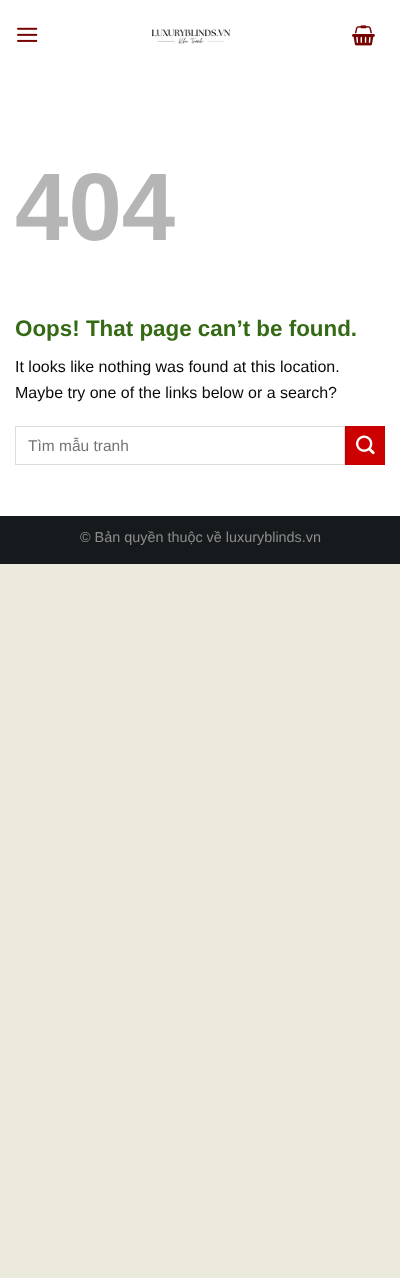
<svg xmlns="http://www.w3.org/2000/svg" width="400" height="1278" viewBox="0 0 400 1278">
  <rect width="100%" height="100%" fill="rgb(236,234,221)"/>
  <rect x="0" y="0" width="400" height="516" fill="rgb(255,255,255)"/>
  <image x="17" y="27" width="21" height="15" href="pic1.png"/>
  <image x="151" y="29" width="79" height="15" href="pic2.png"/>
  <image x="352" y="25" width="23" height="21" href="pic3.png"/>
  <text x="15" y="240" font-family="Liberation Sans" font-size="96" font-weight="bold" fill="rgb(182,181,181)">404</text>
  <text x="15" y="336" font-family="Liberation Sans" font-size="22.4" font-weight="bold" fill="rgb(53,106,21)">Oops! That page can’t be found.</text>
  <g font-family="Liberation Sans" font-size="16" fill="rgb(10,9,9)">
    <text>
      <tspan x="15" y="372">It looks like nothing was found at this location.</tspan>
      <tspan x="15" y="398">Maybe try one of the links below or a search?</tspan>
    </text>
  </g>
  <rect x="15.5" y="426.5" width="329" height="38" fill="none" stroke="rgb(221,221,221)"/>
  <text x="28" y="451" font-family="Liberation Sans" font-size="15.5" fill="rgb(117,117,117)">Tìm mẫu tranh</text>
  <rect x="345.5" y="426.5" width="39" height="38" fill="rgb(204,0,1)" stroke="rgb(194,0,1)"/>
  <image x="356" y="435" width="19" height="20" href="pic4.png"/>
  <rect x="0" y="516" width="400" height="48" fill="rgb(22,26,28)"/>
  <text x="80" y="542" font-family="Liberation Sans" font-size="14.4" fill="rgb(139,141,142)">© Bản quyền thuộc về luxuryblinds.vn</text>
</svg>
